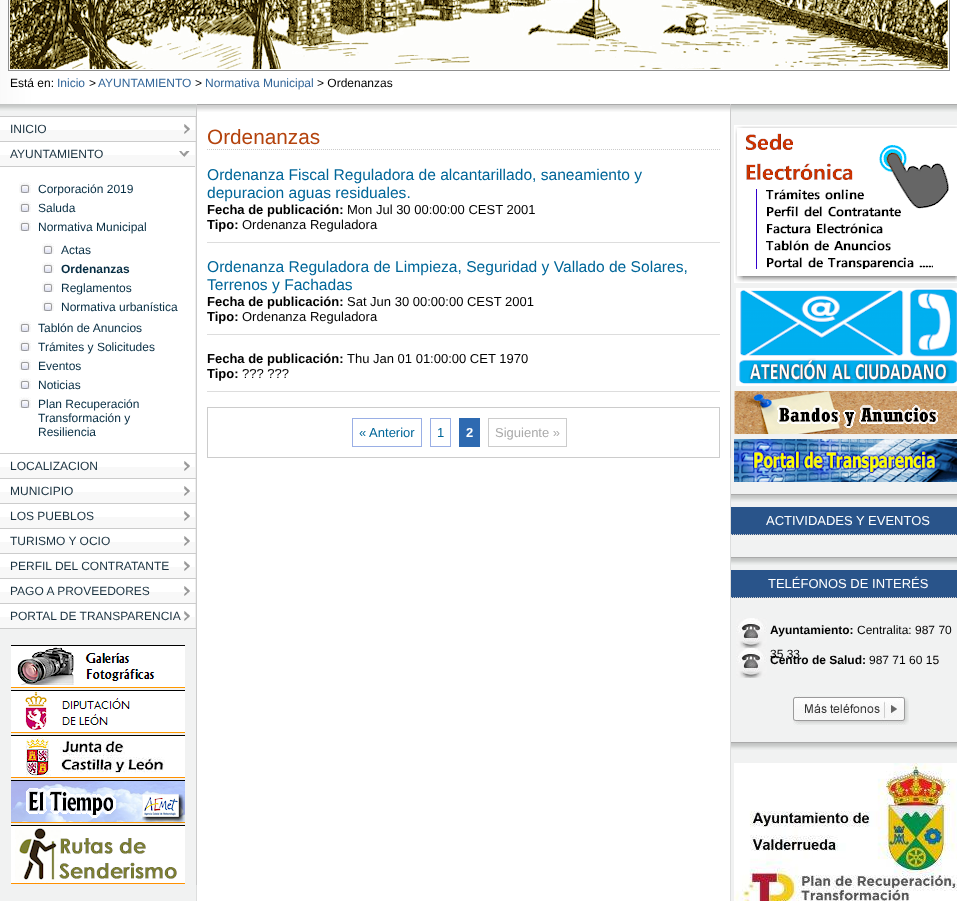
<svg xmlns="http://www.w3.org/2000/svg" width="957" height="901" viewBox="0 0 957 901">
  <rect width="100%" height="100%" fill="rgb(255,255,255)"/>
  <image x="0" y="0" width="957" height="104" href="pic1.png"/>
  <rect x="8.5" y="-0.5" width="941" height="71" fill="none" stroke="rgb(143,143,143)"/>
  <image x="10" y="0" width="938" height="69" href="pic2.png"/>
  <text x="10" y="87" font-family="Liberation Sans" font-size="12" fill="rgb(0,0,0)">Está en:</text>
  <text x="57" y="87" font-family="Liberation Sans" font-size="12" fill="rgb(51,102,153)">Inicio</text>
  <text x="89" y="87" font-family="Liberation Sans" font-size="12" fill="rgb(0,0,0)">&gt;</text>
  <text x="98" y="87" font-family="Liberation Sans" font-size="12" fill="rgb(51,102,153)">AYUNTAMIENTO</text>
  <text x="195" y="87" font-family="Liberation Sans" font-size="12" fill="rgb(0,0,0)">&gt;</text>
  <text x="205" y="87" font-family="Liberation Sans" font-size="12" fill="rgb(51,102,153)">Normativa Municipal</text>
  <text x="317" y="87" font-family="Liberation Sans" font-size="12" fill="rgb(0,0,0)">&gt; Ordenanzas</text>
  <image x="0" y="112" width="957" height="789" href="pic3.png"/>
  <rect x="0" y="111" width="196" height="1" fill="rgb(241,242,242)"/>
  <image x="0" y="104" width="196" height="7" href="pic4.png"/>
  <rect x="196" y="104" width="1" height="781" fill="rgb(204,204,204)"/>
  <rect x="0" y="116" width="196" height="1" fill="rgb(204,204,204)"/>
  <rect x="0" y="141" width="196" height="1" fill="rgb(204,204,204)"/>
  <rect x="0" y="117" width="195" height="13" fill="rgb(255,255,255)"/>
  <rect x="0" y="130" width="195" height="11" fill="rgb(248,248,248)"/>
  <rect x="195" y="117" width="1" height="24" fill="rgb(238,238,238)"/>
  <image x="184" y="124" width="6" height="10" href="pic5.png"/>
  <text x="10" y="133" font-family="Liberation Sans" font-size="12" fill="rgb(26,50,64)">INICIO</text>
  <rect x="0" y="453" width="196" height="1" fill="rgb(204,204,204)"/>
  <rect x="0" y="142" width="195" height="13" fill="rgb(255,255,255)"/>
  <rect x="0" y="155" width="195" height="11" fill="rgb(248,248,248)"/>
  <rect x="195" y="142" width="1" height="24" fill="rgb(238,238,238)"/>
  <image x="179" y="151" width="11" height="6" href="pic6.png"/>
  <text x="10" y="158" font-family="Liberation Sans" font-size="12" fill="rgb(26,50,64)">AYUNTAMIENTO</text>
  <rect x="0" y="167" width="195" height="286" fill="rgb(255,255,255)"/>
  <rect x="0" y="166" width="196" height="1" fill="rgb(204,204,204)"/>
  <rect x="195" y="166" width="1" height="287" fill="rgb(238,238,238)"/>
  <image x="19" y="182" width="12" height="11" href="pic7.png"/>
  <text x="38" y="193" font-family="Liberation Sans" font-size="12" fill="rgb(6,45,67)">Corporación 2019</text>
  <image x="19" y="201" width="12" height="11" href="pic7.png"/>
  <text x="38" y="212" font-family="Liberation Sans" font-size="12" fill="rgb(6,45,67)">Saluda</text>
  <image x="19" y="220" width="12" height="11" href="pic7.png"/>
  <text x="38" y="231" font-family="Liberation Sans" font-size="12" fill="rgb(6,45,67)">Normativa Municipal</text>
  <image x="42" y="243" width="12" height="11" href="pic7.png"/>
  <text x="61" y="254" font-family="Liberation Sans" font-size="12" fill="rgb(6,45,67)">Actas</text>
  <image x="42" y="262" width="12" height="11" href="pic7.png"/>
  <text x="61" y="273" font-family="Liberation Sans" font-size="12" font-weight="bold" fill="rgb(6,45,67)">Ordenanzas</text>
  <image x="42" y="281" width="12" height="11" href="pic7.png"/>
  <text x="61" y="292" font-family="Liberation Sans" font-size="12" fill="rgb(6,45,67)">Reglamentos</text>
  <image x="42" y="300" width="12" height="11" href="pic7.png"/>
  <text x="61" y="311" font-family="Liberation Sans" font-size="12" fill="rgb(6,45,67)">Normativa urbanística</text>
  <image x="19" y="321" width="12" height="11" href="pic7.png"/>
  <text x="38" y="332" font-family="Liberation Sans" font-size="12" fill="rgb(6,45,67)">Tablón de Anuncios</text>
  <image x="19" y="340" width="12" height="11" href="pic7.png"/>
  <text x="38" y="351" font-family="Liberation Sans" font-size="12" fill="rgb(6,45,67)">Trámites y Solicitudes</text>
  <image x="19" y="359" width="12" height="11" href="pic7.png"/>
  <text x="38" y="370" font-family="Liberation Sans" font-size="12" fill="rgb(6,45,67)">Eventos</text>
  <image x="19" y="378" width="12" height="11" href="pic7.png"/>
  <text x="38" y="389" font-family="Liberation Sans" font-size="12" fill="rgb(6,45,67)">Noticias</text>
  <image x="19" y="397" width="12" height="11" href="pic7.png"/>
  <g font-family="Liberation Sans" font-size="12" fill="rgb(6,45,67)">
    <text>
      <tspan x="38" y="408">Plan Recuperación</tspan>
      <tspan x="38" y="422">Transformación y</tspan>
      <tspan x="38" y="436">Resiliencia</tspan>
    </text>
  </g>
  <rect x="0" y="478" width="196" height="1" fill="rgb(204,204,204)"/>
  <rect x="0" y="454" width="195" height="13" fill="rgb(255,255,255)"/>
  <rect x="0" y="467" width="195" height="11" fill="rgb(248,248,248)"/>
  <rect x="195" y="454" width="1" height="24" fill="rgb(238,238,238)"/>
  <image x="184" y="461" width="6" height="10" href="pic5.png"/>
  <text x="10" y="470" font-family="Liberation Sans" font-size="12" fill="rgb(26,50,64)">LOCALIZACION</text>
  <rect x="0" y="503" width="196" height="1" fill="rgb(204,204,204)"/>
  <rect x="0" y="479" width="195" height="13" fill="rgb(255,255,255)"/>
  <rect x="0" y="492" width="195" height="11" fill="rgb(248,248,248)"/>
  <rect x="195" y="479" width="1" height="24" fill="rgb(238,238,238)"/>
  <image x="184" y="486" width="6" height="10" href="pic5.png"/>
  <text x="10" y="495" font-family="Liberation Sans" font-size="12" fill="rgb(26,50,64)">MUNICIPIO</text>
  <rect x="0" y="528" width="196" height="1" fill="rgb(204,204,204)"/>
  <rect x="0" y="504" width="195" height="13" fill="rgb(255,255,255)"/>
  <rect x="0" y="517" width="195" height="11" fill="rgb(248,248,248)"/>
  <rect x="195" y="504" width="1" height="24" fill="rgb(238,238,238)"/>
  <image x="184" y="511" width="6" height="10" href="pic5.png"/>
  <text x="10" y="520" font-family="Liberation Sans" font-size="12" fill="rgb(26,50,64)">LOS PUEBLOS</text>
  <rect x="0" y="553" width="196" height="1" fill="rgb(204,204,204)"/>
  <rect x="0" y="529" width="195" height="13" fill="rgb(255,255,255)"/>
  <rect x="0" y="542" width="195" height="11" fill="rgb(248,248,248)"/>
  <rect x="195" y="529" width="1" height="24" fill="rgb(238,238,238)"/>
  <image x="184" y="536" width="6" height="10" href="pic5.png"/>
  <text x="10" y="545" font-family="Liberation Sans" font-size="12" fill="rgb(26,50,64)">TURISMO Y OCIO</text>
  <rect x="0" y="578" width="196" height="1" fill="rgb(204,204,204)"/>
  <rect x="0" y="554" width="195" height="13" fill="rgb(255,255,255)"/>
  <rect x="0" y="567" width="195" height="11" fill="rgb(248,248,248)"/>
  <rect x="195" y="554" width="1" height="24" fill="rgb(238,238,238)"/>
  <image x="184" y="561" width="6" height="10" href="pic5.png"/>
  <text x="10" y="570" font-family="Liberation Sans" font-size="12" fill="rgb(26,50,64)">PERFIL DEL CONTRATANTE</text>
  <rect x="0" y="603" width="196" height="1" fill="rgb(204,204,204)"/>
  <rect x="0" y="579" width="195" height="13" fill="rgb(255,255,255)"/>
  <rect x="0" y="592" width="195" height="11" fill="rgb(248,248,248)"/>
  <rect x="195" y="579" width="1" height="24" fill="rgb(238,238,238)"/>
  <image x="184" y="586" width="6" height="10" href="pic5.png"/>
  <text x="10" y="595" font-family="Liberation Sans" font-size="12" fill="rgb(26,50,64)">PAGO A PROVEEDORES</text>
  <rect x="0" y="628" width="196" height="1" fill="rgb(204,204,204)"/>
  <rect x="0" y="604" width="195" height="13" fill="rgb(255,255,255)"/>
  <rect x="0" y="617" width="195" height="11" fill="rgb(248,248,248)"/>
  <rect x="195" y="604" width="1" height="24" fill="rgb(238,238,238)"/>
  <image x="184" y="611" width="6" height="10" href="pic5.png"/>
  <text x="10" y="620" font-family="Liberation Sans" font-size="12" fill="rgb(26,50,64)">PORTAL DE TRANSPARENCIA</text>
  <image x="11" y="645" width="174" height="43" href="pic8.png"/>
  <image x="11" y="690" width="174" height="43" href="pic9.png"/>
  <image x="11" y="735" width="174" height="43" href="pic10.png"/>
  <image x="11" y="780" width="174" height="43" href="pic11.png"/>
  <image x="11" y="825" width="174" height="59" href="pic12.png"/>
  <image x="197" y="105" width="533" height="7" href="pic13.png"/>
  <rect x="197" y="104" width="760" height="1" fill="rgb(170,170,170)"/>
  <rect x="730" y="104" width="1" height="354" fill="rgb(204,204,204)"/>
  <path d="M207 149.5H720" fill="none" stroke="rgb(204,204,204)" stroke-dasharray="1 1"/>
  <text x="207" y="144" font-family="Liberation Sans" font-size="20.75" fill="rgb(180,67,13)">Ordenanzas</text>
  <g font-family="Liberation Sans" font-size="15.6" fill="rgb(0,102,153)">
    <text>
      <tspan x="207" y="180">Ordenanza Fiscal Reguladora de alcantarillado, saneamiento y</tspan>
      <tspan x="207" y="198">depuracion aguas residuales.</tspan>
    </text>
  </g>
  <text x="207" y="214" font-family="Liberation Sans" font-size="13" font-weight="bold" fill="rgb(0,0,0)">Fecha de publicación:</text>
  <text x="347" y="214" font-family="Liberation Sans" font-size="13" fill="rgb(0,0,0)">Mon Jul 30 00:00:00 CEST 2001</text>
  <text x="207" y="229" font-family="Liberation Sans" font-size="13" font-weight="bold" fill="rgb(0,0,0)">Tipo:</text>
  <text x="242" y="229" font-family="Liberation Sans" font-size="13" fill="rgb(0,0,0)">Ordenanza Reguladora</text>
  <rect x="207" y="242" width="513" height="1" fill="rgb(221,221,221)"/>
  <g font-family="Liberation Sans" font-size="15.6" fill="rgb(0,102,153)">
    <text>
      <tspan x="207" y="272">Ordenanza Reguladora de Limpieza, Seguridad y Vallado de Solares,</tspan>
      <tspan x="207" y="290">Terrenos y Fachadas</tspan>
    </text>
  </g>
  <text x="207" y="306" font-family="Liberation Sans" font-size="13" font-weight="bold" fill="rgb(0,0,0)">Fecha de publicación:</text>
  <text x="347" y="306" font-family="Liberation Sans" font-size="13" fill="rgb(0,0,0)">Sat Jun 30 00:00:00 CEST 2001</text>
  <text x="207" y="321" font-family="Liberation Sans" font-size="13" font-weight="bold" fill="rgb(0,0,0)">Tipo:</text>
  <text x="242" y="321" font-family="Liberation Sans" font-size="13" fill="rgb(0,0,0)">Ordenanza Reguladora</text>
  <rect x="207" y="334" width="513" height="1" fill="rgb(221,221,221)"/>
  <text x="207" y="363" font-family="Liberation Sans" font-size="13" font-weight="bold" fill="rgb(0,0,0)">Fecha de publicación:</text>
  <text x="347" y="363" font-family="Liberation Sans" font-size="13" fill="rgb(0,0,0)">Thu Jan 01 01:00:00 CET 1970</text>
  <text x="207" y="378" font-family="Liberation Sans" font-size="13" font-weight="bold" fill="rgb(0,0,0)">Tipo:</text>
  <text x="242" y="378" font-family="Liberation Sans" font-size="13" fill="rgb(0,0,0)">??? ???</text>
  <rect x="207" y="391" width="513" height="1" fill="rgb(221,221,221)"/>
  <rect x="207.5" y="407.5" width="512" height="50" fill="none" stroke="rgb(204,204,204)"/>
  <rect x="352.5" y="418.5" width="69" height="28" fill="none" stroke="rgb(154,175,229)"/>
  <text x="359" y="437" font-family="Liberation Sans" font-size="13" fill="rgb(0,102,153)">« Anterior</text>
  <rect x="430.5" y="418.5" width="20" height="28" fill="none" stroke="rgb(154,175,229)"/>
  <text x="437" y="437" font-family="Liberation Sans" font-size="13" fill="rgb(0,102,153)">1</text>
  <rect x="459" y="418" width="21" height="29" fill="rgb(46,106,177)"/>
  <text x="466" y="437" font-family="Liberation Sans" font-size="13" font-weight="bold" fill="rgb(255,255,255)">2</text>
  <rect x="488.5" y="418.5" width="78" height="28" fill="none" stroke="rgb(204,204,204)"/>
  <text x="495" y="437" font-family="Liberation Sans" font-size="13" fill="rgb(170,170,170)">Siguiente »</text>
  <image x="731" y="105" width="226" height="7" href="pic14.png"/>
  <image x="734" y="125" width="223" height="158" href="pic15.png"/>
  <image x="736" y="288" width="221" height="98" href="pic16.png"/>
  <image x="734" y="391" width="223" height="43" href="pic17.png"/>
  <image x="734" y="439" width="223" height="43" href="pic18.png"/>
  <image x="731" y="495" width="226" height="7" href="pic14.png"/>
  <rect x="731" y="494" width="226" height="1" fill="rgb(170,170,170)"/>
  <rect x="731" y="507" width="226" height="28" fill="rgb(41,84,138)"/>
  <path d="M731 534.5H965" fill="none" stroke="rgb(204,204,204)" stroke-dasharray="1 1"/>
  <text x="766" y="525" font-family="Liberation Sans" font-size="13" fill="rgb(255,255,255)">ACTIVIDADES Y EVENTOS</text>
  <image x="731" y="558" width="226" height="7" href="pic14.png"/>
  <rect x="731" y="557" width="226" height="1" fill="rgb(170,170,170)"/>
  <rect x="731" y="570" width="226" height="28" fill="rgb(41,84,138)"/>
  <path d="M731 597.5H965" fill="none" stroke="rgb(204,204,204)" stroke-dasharray="1 1"/>
  <text x="768" y="588" font-family="Liberation Sans" font-size="13" fill="rgb(255,255,255)">TELÉFONOS DE INTERÉS</text>
  <image x="736" y="618" width="31" height="30" href="pic19.png"/>
  <text x="770" y="634" font-family="Liberation Sans" font-size="12" font-weight="bold" fill="rgb(0,0,0)">Ayuntamiento:</text>
  <g font-family="Liberation Sans" font-size="12" fill="rgb(0,0,0)">
    <text x="857" y="634">Centralita: 987 70</text>
    <text x="770" y="658">35 33</text>
  </g>
  <image x="736" y="648" width="31" height="30" href="pic19.png"/>
  <text x="770" y="664" font-family="Liberation Sans" font-size="12" font-weight="bold" fill="rgb(0,0,0)">Centro de Salud:</text>
  <text x="869" y="664" font-family="Liberation Sans" font-size="12" fill="rgb(0,0,0)">987 71 60 15</text>
  <image x="793" y="693" width="116" height="32" href="pic20.png"/>
  <image x="731" y="743" width="226" height="7" href="pic14.png"/>
  <rect x="731" y="742" width="226" height="1" fill="rgb(170,170,170)"/>
  <image x="734" y="763" width="223" height="138" href="pic21.png"/>
</svg>
